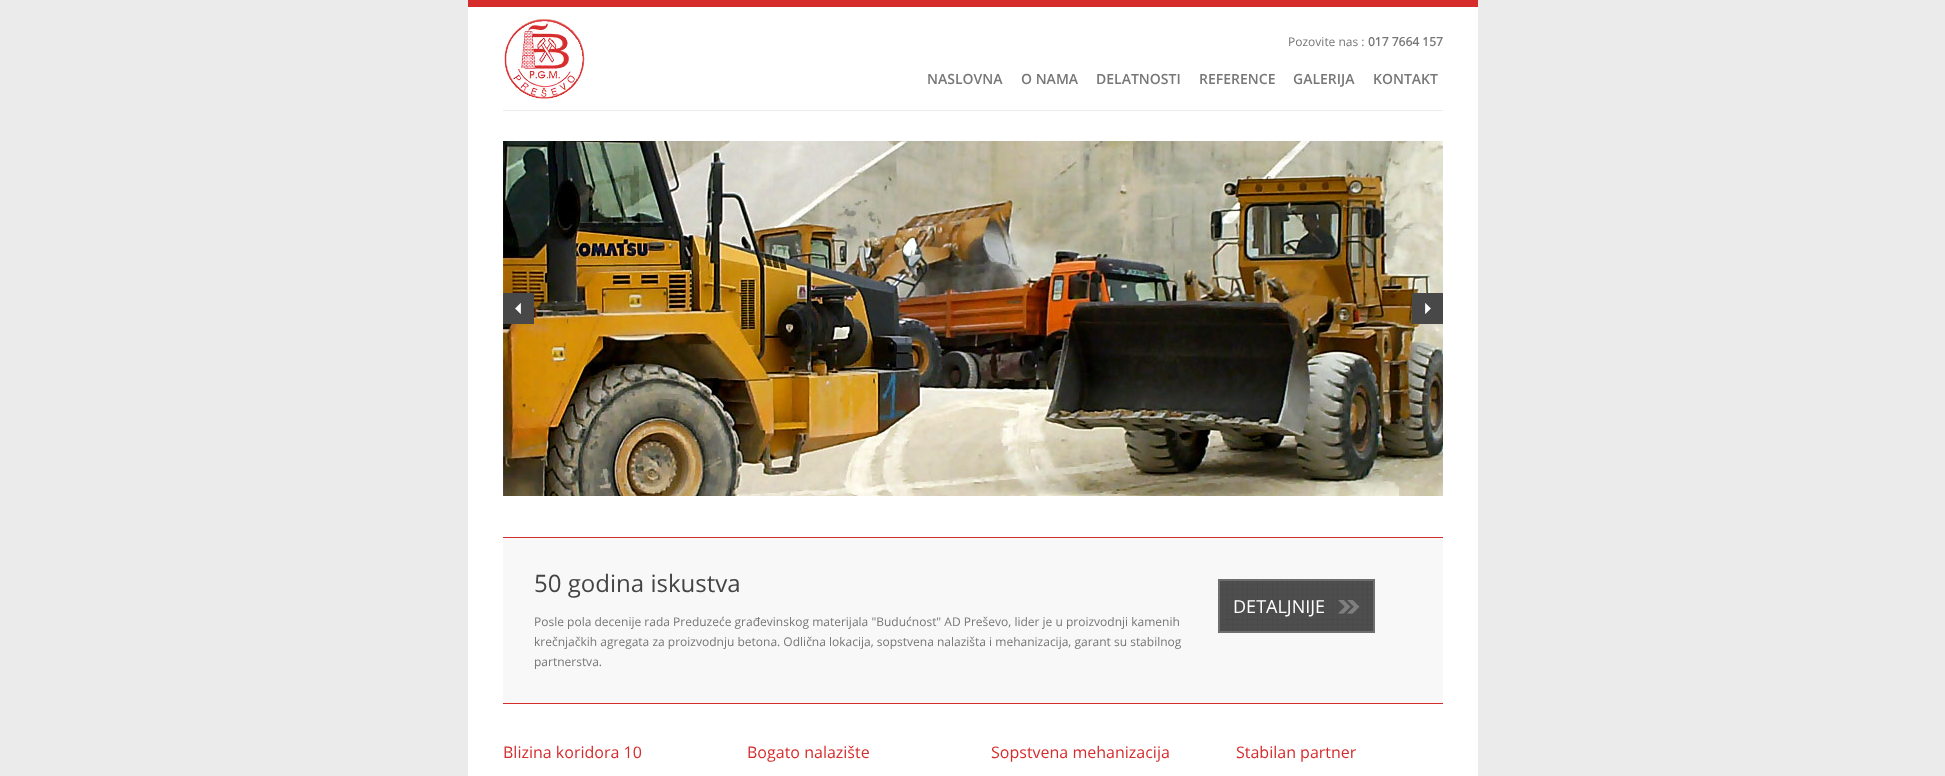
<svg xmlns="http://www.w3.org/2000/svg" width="1945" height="776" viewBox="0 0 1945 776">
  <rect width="100%" height="100%" fill="rgb(235,235,235)"/>
  <rect x="468" y="7" width="1010" height="769" fill="rgb(255,255,255)"/>
  <rect x="468" y="0" width="1010" height="7" fill="rgb(214,44,44)"/>
  <rect x="503" y="110" width="940" height="1" fill="rgb(236,236,236)"/>
  <image x="504" y="19" width="81" height="80" href="pic1.png"/>
  <text x="1288" y="46" font-family="Open Sans" font-size="12" fill="rgb(119,119,119)">Pozovite nas :</text>
  <text x="1368" y="46" font-family="Open Sans" font-size="12" font-weight="bold" fill="rgb(119,119,119)">017 7664 157</text>
  <g font-family="Open Sans" font-size="14" font-weight="600" fill="rgb(119,119,119)">
    <text x="927" y="84">NASLOVNA</text>
    <text x="1021" y="84">O NAMA</text>
    <text x="1096" y="84">DELATNOSTI</text>
    <text x="1199" y="84">REFERENCE</text>
    <text x="1293" y="84">GALERIJA</text>
    <text x="1373" y="84">KONTAKT</text>
  </g>
  <image x="503" y="141" width="940" height="355" href="pic2.png"/>
  <image x="503" y="293" width="31" height="31" href="pic3.png"/>
  <image x="1412" y="293" width="31" height="31" href="pic4.png"/>
  <rect x="503" y="538" width="940" height="165" fill="rgb(248,248,248)"/>
  <rect x="503" y="537" width="940" height="1" fill="rgb(214,44,44)"/>
  <rect x="503" y="703" width="940" height="1" fill="rgb(214,44,44)"/>
  <text x="534" y="592" font-family="Open Sans" font-size="24" fill="rgb(68,68,68)">50 godina iskustva</text>
  <g font-family="Open Sans" font-size="12" fill="rgb(119,119,119)">
    <text>
      <tspan x="534" y="626">Posle pola decenije rada Preduzeće građevinskog materijala "Budućnost" AD Preševo, lider je u proizvodnji kamenih</tspan>
      <tspan x="534" y="646">krečnjačkih agregata za proizvodnju betona. Odlična lokacija, sopstvena nalazišta i mehanizacija, garant su stabilnog</tspan>
      <tspan x="534" y="666">partnerstva.</tspan>
    </text>
  </g>
  <image x="1220" y="581" width="153" height="50" href="pic5.png"/>
  <rect x="1219" y="580" width="155" height="52" fill="none" stroke="rgb(110,110,110)" stroke-width="2"/>
  <text x="1233" y="613" font-family="Open Sans" font-size="18" fill="rgb(255,255,255)">DETALJNIJE</text>
  <image x="1338" y="600" width="22" height="14" href="pic6.png"/>
  <g font-family="Open Sans" font-size="16" fill="rgb(214,44,44)">
    <text x="503" y="758">Blizina koridora 10</text>
    <text x="747" y="758">Bogato nalazište</text>
    <text x="991" y="758">Sopstvena mehanizacija</text>
    <text x="1236" y="758">Stabilan partner</text>
  </g>
</svg>
